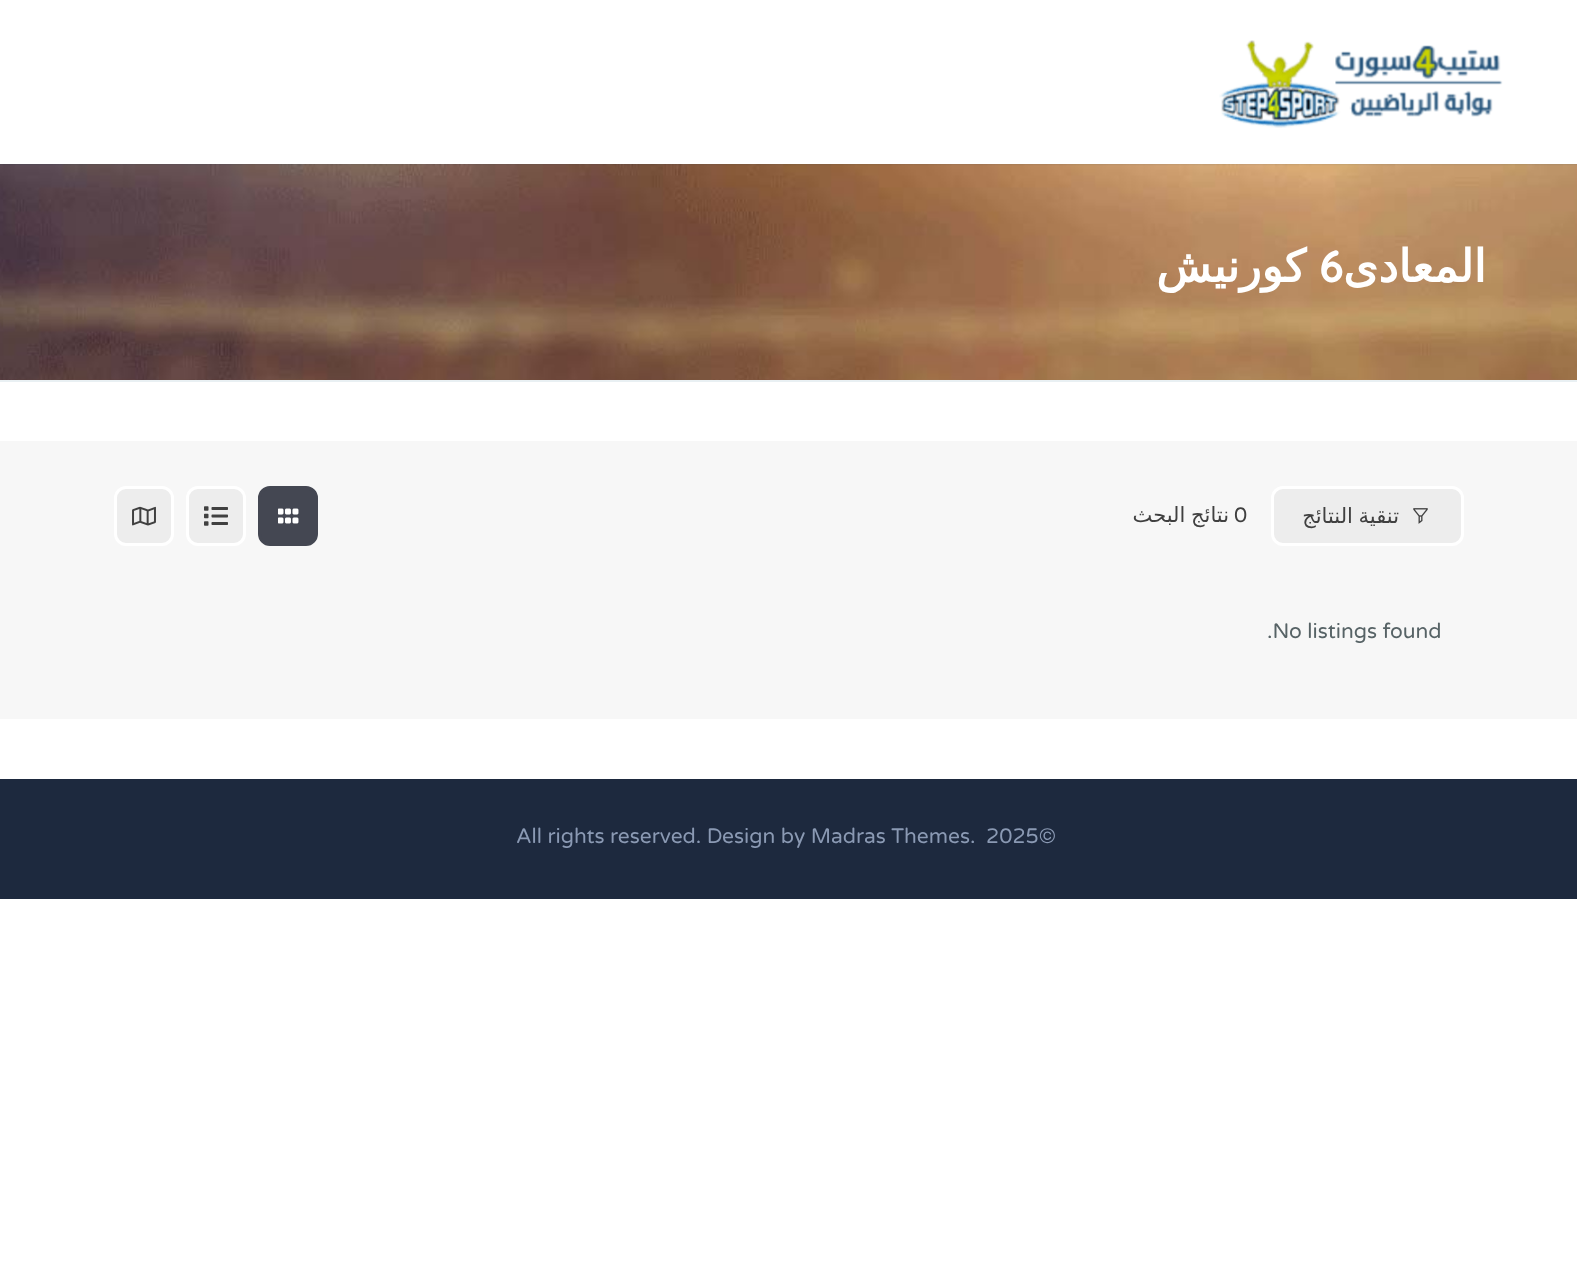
<svg xmlns="http://www.w3.org/2000/svg" width="1577" height="1274" viewBox="0 0 1577 1274">
  <defs>
    <clipPath id="clip1"><path d="M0 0H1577V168H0ZM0 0H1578V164H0Z" clip-rule="evenodd"/></clipPath>
  </defs>
  <rect width="100%" height="100%" fill="rgb(255,255,255)"/>
  <image x="0" y="164" width="1577" height="216" href="pic2.png"/>
  <g clip-path="url(#clip1)">
    <rect x="0" y="0" width="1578" height="164" fill="rgba(0,65,94,0.2)" filter="blur(1px)"/>
  </g>
  <image x="1219" y="40" width="284" height="88" href="pic1.png"/>
  <rect x="0" y="380" width="1577" height="2" fill="rgb(233,240,243)"/>
  <text x="1306" y="282" font-family="DejaVu Sans" font-size="45" font-weight="bold" direction="rtl" fill="rgb(255,255,255)">كورنيش</text>
  <text x="1319" y="282" font-family="Quicksand" font-size="45" font-weight="bold" fill="rgb(255,255,255)">6</text>
  <text x="1486" y="282" font-family="DejaVu Sans" font-size="45" font-weight="bold" direction="rtl" fill="rgb(255,255,255)">المعادى</text>
  <rect x="0" y="441" width="1577" height="278" fill="rgb(247,247,247)"/>
  <rect x="115.5" y="487.5" width="57" height="57" rx="10.5" fill="rgb(237,237,237)" stroke="rgb(255,255,255)" stroke-width="3"/>
  <image x="132" y="506" width="24" height="20" href="pic3.png"/>
  <rect x="187.5" y="487.5" width="57" height="57" rx="10.5" fill="rgb(237,237,237)" stroke="rgb(255,255,255)" stroke-width="3"/>
  <image x="204" y="506" width="24" height="20" href="pic4.png"/>
  <rect x="259.5" y="487.5" width="57" height="57" rx="10.5" fill="rgb(68,71,82)" stroke="rgb(68,71,82)" stroke-width="3"/>
  <image x="278" y="508" width="21" height="16" href="pic5.png"/>
  <text x="1229" y="522" word-spacing="-1" font-family="DejaVu Sans" font-size="21" direction="rtl" fill="rgb(64,64,64)">نتائج البحث</text>
  <text x="1234" y="522" font-family="Varela Round" font-size="21" fill="rgb(64,64,64)">0</text>
  <rect x="1272.5" y="487.5" width="190" height="57" rx="10.5" fill="rgb(237,237,237)" stroke="rgb(255,255,255)" stroke-width="3"/>
  <text x="1399" y="523" word-spacing="-1" font-family="DejaVu Sans" font-size="21" direction="rtl" fill="rgb(64,64,64)">تنقية النتائج</text>
  <image x="1413" y="508" width="15" height="16" href="pic6.png"/>
  <text x="1267" y="638" font-family="Varela Round" font-size="21" fill="rgb(87,99,102)">.No listings found</text>
  <rect x="0" y="779" width="1577" height="120" fill="rgb(29,41,62)"/>
  <g font-family="Varela Round" font-size="21" fill="rgb(138,153,179)">
    <text x="516" y="843">All rights reserved. Design by Madras Themes</text>
    <text x="970" y="843">.</text>
    <text x="986" y="843">2025©</text>
  </g>
</svg>
